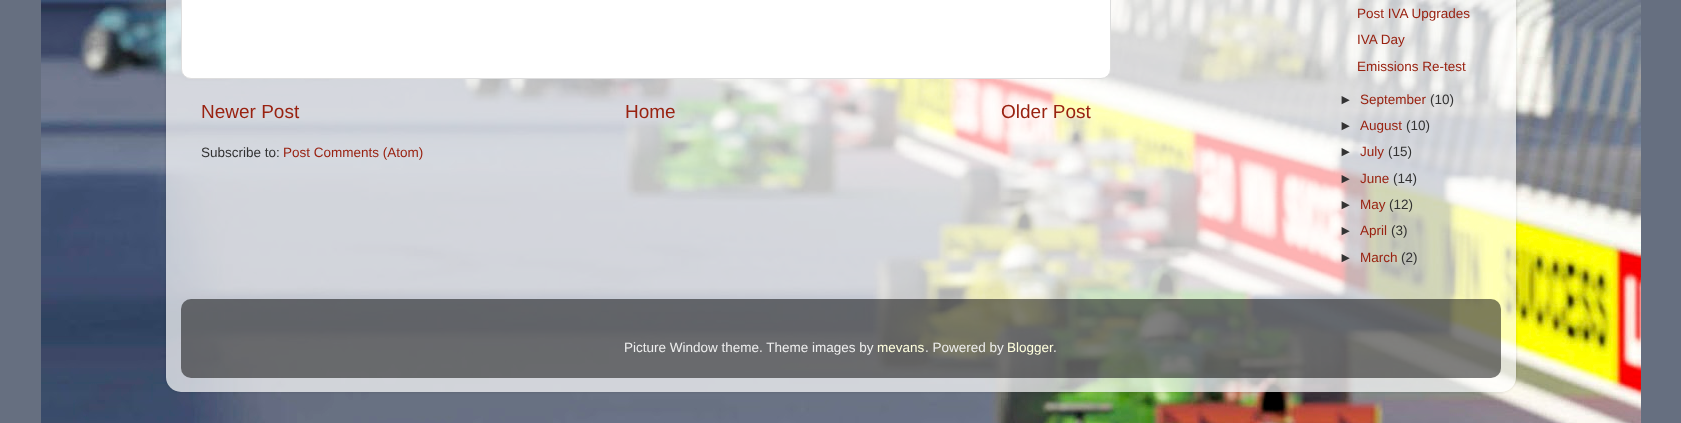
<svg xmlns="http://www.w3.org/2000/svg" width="1681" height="423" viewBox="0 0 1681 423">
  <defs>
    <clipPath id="clip1"><path d="M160 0H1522V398H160ZM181-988H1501C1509.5-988 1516-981.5 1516-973V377C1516 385.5 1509.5 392 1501 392H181C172.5 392 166 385.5 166 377V-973C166-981.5 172.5-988 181-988Z" clip-rule="evenodd"/></clipPath>
  </defs>
  <rect width="100%" height="100%" fill="rgb(102,111,128)"/>
  <image x="41" y="0" width="1600" height="423" href="pic1.png"/>
  <g clip-path="url(#clip1)">
    <rect x="166" y="-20" width="1350" height="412" rx="15" fill="rgba(0,0,0,0.15)" filter="blur(1.5px)"/>
  </g>
  <image x="166" y="0" width="1350" height="392" href="pic2.png"/>
  <rect x="181.5" y="-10.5" width="929" height="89" rx="9.5" fill="rgb(255,255,255)" stroke="rgb(221,221,221)"/>
  <g font-family="Liberation Sans" font-size="19" fill="rgb(153,34,17)">
    <text x="201" y="118">Newer Post</text>
    <text x="625" y="118">Home</text>
    <text x="1001" y="118">Older Post</text>
  </g>
  <text x="201" y="157" font-family="Liberation Sans" font-size="13.5" fill="rgb(51,51,51)">Subscribe to:</text>
  <g font-family="Liberation Sans" font-size="13.5" fill="rgb(153,34,17)">
    <text x="283" y="157">Post Comments (Atom)</text>
    <text>
      <tspan x="1357" y="18">Post IVA Upgrades</tspan>
      <tspan x="1357" y="44">IVA Day</tspan>
    </text>
    <text x="1357" y="71">Emissions Re-test</text>
  </g>
  <text x="1339" y="104" font-family="Liberation Sans" font-size="13.5" fill="rgb(51,51,51)">►</text>
  <text x="1360" y="104" font-family="Liberation Sans" font-size="13.5" fill="rgb(153,34,17)">September</text>
  <g font-family="Liberation Sans" font-size="13.5" fill="rgb(51,51,51)">
    <text x="1430" y="104">(10)</text>
    <text x="1339" y="130">►</text>
  </g>
  <text x="1360" y="130" font-family="Liberation Sans" font-size="13.5" fill="rgb(153,34,17)">August</text>
  <g font-family="Liberation Sans" font-size="13.5" fill="rgb(51,51,51)">
    <text x="1406" y="130">(10)</text>
    <text x="1339" y="156">►</text>
  </g>
  <text x="1360" y="156" font-family="Liberation Sans" font-size="13.5" fill="rgb(153,34,17)">July</text>
  <g font-family="Liberation Sans" font-size="13.5" fill="rgb(51,51,51)">
    <text x="1388" y="156">(15)</text>
    <text x="1339" y="183">►</text>
  </g>
  <text x="1360" y="183" font-family="Liberation Sans" font-size="13.5" fill="rgb(153,34,17)">June</text>
  <g font-family="Liberation Sans" font-size="13.5" fill="rgb(51,51,51)">
    <text x="1393" y="183">(14)</text>
    <text x="1339" y="209">►</text>
  </g>
  <text x="1360" y="209" font-family="Liberation Sans" font-size="13.5" fill="rgb(153,34,17)">May</text>
  <g font-family="Liberation Sans" font-size="13.5" fill="rgb(51,51,51)">
    <text x="1389" y="209">(12)</text>
    <text x="1339" y="235">►</text>
  </g>
  <text x="1360" y="235" font-family="Liberation Sans" font-size="13.5" fill="rgb(153,34,17)">April</text>
  <g font-family="Liberation Sans" font-size="13.5" fill="rgb(51,51,51)">
    <text x="1391" y="235">(3)</text>
    <text x="1339" y="262">►</text>
  </g>
  <text x="1360" y="262" font-family="Liberation Sans" font-size="13.5" fill="rgb(153,34,17)">March</text>
  <text x="1401" y="262" font-family="Liberation Sans" font-size="13.5" fill="rgb(51,51,51)">(2)</text>
  <image x="181" y="299" width="1320" height="79" href="pic3.png"/>
  <text x="624" y="352" font-family="Liberation Sans" font-size="13.5" fill="rgb(238,238,238)">Picture Window theme. Theme images by</text>
  <text x="877" y="352" font-family="Liberation Sans" font-size="13.5" fill="rgb(255,255,221)">mevans</text>
  <text x="925" y="352" font-family="Liberation Sans" font-size="13.5" fill="rgb(238,238,238)">. Powered by</text>
  <text x="1007" y="352" font-family="Liberation Sans" font-size="13.5" fill="rgb(255,255,221)">Blogger</text>
  <text x="1053" y="352" font-family="Liberation Sans" font-size="13.5" fill="rgb(238,238,238)">.</text>
</svg>
